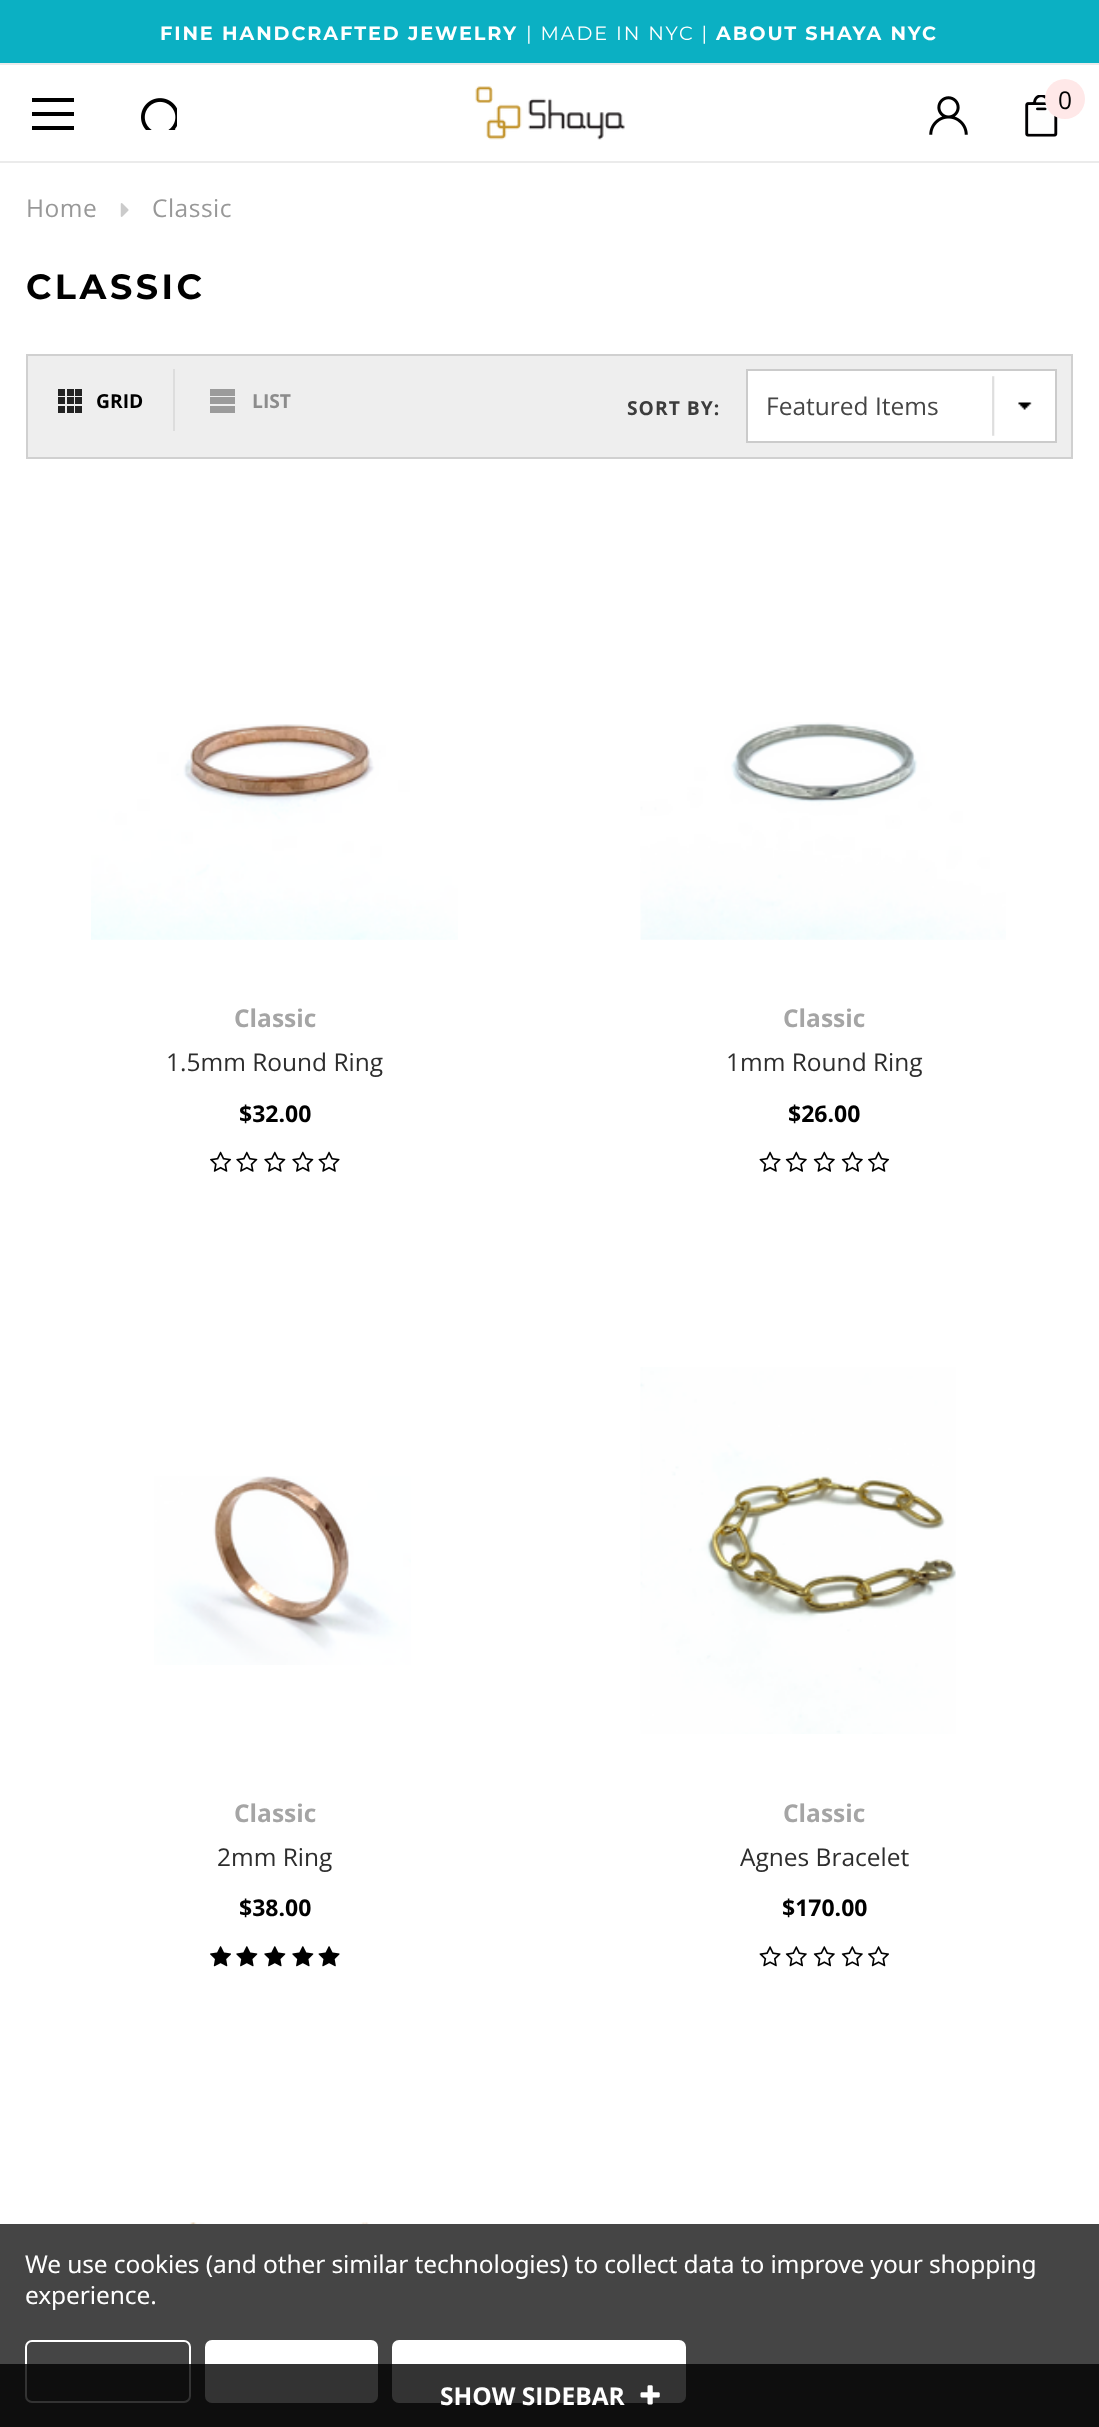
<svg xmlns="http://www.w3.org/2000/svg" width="1099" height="2427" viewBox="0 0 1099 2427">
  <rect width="100%" height="100%" fill="rgb(255,255,255)"/>
  <rect x="0" y="0" width="1099" height="63" fill="rgb(11,176,195)"/>
  <text x="160" y="40" font-family="Montserrat" font-size="19.25" font-weight="bold" letter-spacing="1.9" fill="rgb(255,255,255)">FINE HANDCRAFTED JEWELRY</text>
  <text x="526" y="40" font-family="Montserrat" font-size="19.25" letter-spacing="1.9" fill="rgb(255,255,255)">| MADE IN NYC |</text>
  <text x="716" y="40" font-family="Montserrat" font-size="19.25" font-weight="bold" letter-spacing="1.9" fill="rgb(255,255,255)">ABOUT SHAYA NYC</text>
  <image x="141" y="98" width="36" height="32" href="pic1.png"/>
  <image x="929" y="96" width="39" height="39" href="pic2.png"/>
  <rect x="0" y="63" width="1099" height="2" fill="rgb(235,235,235)"/>
  <rect x="0" y="161" width="1099" height="2" fill="rgb(235,235,235)"/>
  <rect x="32" y="112" width="42" height="4" fill="rgb(0,0,0)"/>
  <rect x="32" y="98" width="42" height="4" fill="rgb(0,0,0)"/>
  <rect x="32" y="126" width="42" height="4" fill="rgb(0,0,0)"/>
  <image x="475" y="86" width="150" height="54" href="pic3.png"/>
  <image x="1025" y="95" width="33" height="42" href="pic4.png"/>
  <circle cx="1065" cy="99" r="20" fill="rgb(255,232,232)"/>
  <text x="1058" y="109" font-family="Open Sans" font-size="24.5" fill="rgb(0,0,0)">0</text>
  <text x="26" y="217" font-family="Open Sans" font-size="24.5" letter-spacing="0.5" fill="rgb(152,152,152)">Home</text>
  <image x="120" y="203" width="9" height="14" href="pic5.png"/>
  <text x="152" y="217" font-family="Open Sans" font-size="24.5" letter-spacing="0.5" fill="rgb(152,152,152)">Classic</text>
  <text x="26" y="299" font-family="Montserrat" font-size="35" font-weight="bold" letter-spacing="3.5" fill="rgb(0,0,0)">CLASSIC</text>
  <rect x="27" y="355" width="1045" height="103" fill="rgb(238,238,238)" stroke="rgb(208,208,208)" stroke-width="2"/>
  <rect x="67" y="389" width="7" height="7" fill="rgb(35,35,35)"/>
  <rect x="58" y="389" width="7" height="7" fill="rgb(35,35,35)"/>
  <rect x="75" y="389" width="7" height="7" fill="rgb(35,35,35)"/>
  <rect x="67" y="397" width="7" height="7" fill="rgb(35,35,35)"/>
  <rect x="58" y="397" width="7" height="7" fill="rgb(35,35,35)"/>
  <rect x="75" y="397" width="7" height="7" fill="rgb(35,35,35)"/>
  <rect x="67" y="406" width="7" height="7" fill="rgb(35,35,35)"/>
  <rect x="58" y="406" width="7" height="7" fill="rgb(35,35,35)"/>
  <rect x="75" y="406" width="7" height="7" fill="rgb(35,35,35)"/>
  <text x="96" y="408" font-family="Open Sans" font-size="19.25" font-weight="bold" fill="rgb(0,0,0)">GRID</text>
  <rect x="173" y="369" width="2" height="62" fill="rgb(221,221,221)"/>
  <rect x="210" y="389" width="25" height="7" fill="rgb(155,155,155)"/>
  <rect x="210" y="397" width="25" height="7" fill="rgb(155,155,155)"/>
  <rect x="210" y="406" width="25" height="7" fill="rgb(155,155,155)"/>
  <text x="252" y="408" font-family="Open Sans" font-size="19.25" font-weight="bold" fill="rgb(140,140,140)">LIST</text>
  <text x="627" y="415" font-family="Open Sans" font-size="19.25" font-weight="bold" letter-spacing="1" fill="rgb(60,60,60)">SORT BY:</text>
  <rect x="748" y="371" width="307" height="70" fill="rgb(255,255,255)"/>
  <image x="992" y="376" width="40" height="60" href="pic6.png"/>
  <rect x="747" y="370" width="309" height="72" fill="none" stroke="rgb(203,203,203)" stroke-width="2"/>
  <text x="766" y="415" font-family="Open Sans" font-size="24.5" fill="rgb(69,69,69)">Featured Items</text>
  <image x="91" y="724" width="367" height="216" href="pic7.png"/>
  <text x="234" y="1027" font-family="Open Sans" font-size="24.5" font-weight="bold" fill="rgb(165,165,165)">Classic</text>
  <text x="166" y="1071" font-family="Open Sans" font-size="24.5" fill="rgb(45,45,45)">1.5mm Round Ring</text>
  <text x="239" y="1122" font-family="Open Sans" font-size="23" font-weight="bold" fill="rgb(0,0,0)">$32.00</text>
  <image x="210" y="1151" width="22" height="21" href="pic8.png"/>
  <image x="236" y="1151" width="22" height="21" href="pic9.png"/>
  <image x="264" y="1151" width="22" height="21" href="pic9.png"/>
  <image x="292" y="1151" width="22" height="21" href="pic9.png"/>
  <image x="318" y="1151" width="22" height="21" href="pic10.png"/>
  <image x="640" y="722" width="366" height="218" href="pic11.png"/>
  <text x="783" y="1027" font-family="Open Sans" font-size="24.5" font-weight="bold" fill="rgb(165,165,165)">Classic</text>
  <text x="726" y="1071" font-family="Open Sans" font-size="24.5" fill="rgb(45,45,45)">1mm Round Ring</text>
  <text x="788" y="1122" font-family="Open Sans" font-size="23" font-weight="bold" fill="rgb(0,0,0)">$26.00</text>
  <image x="759" y="1151" width="22" height="21" href="pic10.png"/>
  <image x="785" y="1151" width="22" height="21" href="pic12.png"/>
  <image x="813" y="1151" width="22" height="21" href="pic12.png"/>
  <image x="841" y="1151" width="22" height="21" href="pic12.png"/>
  <image x="868" y="1151" width="22" height="21" href="pic8.png"/>
  <image x="154" y="1476" width="257" height="189" href="pic13.png"/>
  <text x="234" y="1822" font-family="Open Sans" font-size="24.5" font-weight="bold" fill="rgb(165,165,165)">Classic</text>
  <text x="217" y="1866" font-family="Open Sans" font-size="24.5" fill="rgb(45,45,45)">2mm Ring</text>
  <text x="239" y="1916" font-family="Open Sans" font-size="23" font-weight="bold" fill="rgb(0,0,0)">$38.00</text>
  <image x="210" y="1946" width="21" height="21" href="pic14.png"/>
  <image x="236" y="1946" width="22" height="21" href="pic15.png"/>
  <image x="264" y="1946" width="22" height="21" href="pic15.png"/>
  <image x="292" y="1946" width="22" height="21" href="pic15.png"/>
  <image x="318" y="1946" width="22" height="21" href="pic16.png"/>
  <image x="640" y="1367" width="316" height="367" href="pic17.png"/>
  <text x="783" y="1822" font-family="Open Sans" font-size="24.5" font-weight="bold" fill="rgb(165,165,165)">Classic</text>
  <text x="740" y="1866" font-family="Open Sans" font-size="24.5" fill="rgb(45,45,45)">Agnes Bracelet</text>
  <text x="782" y="1916" font-family="Open Sans" font-size="23" font-weight="bold" fill="rgb(0,0,0)">$170.00</text>
  <image x="759" y="1946" width="22" height="21" href="pic18.png"/>
  <image x="785" y="1946" width="22" height="21" href="pic19.png"/>
  <image x="813" y="1946" width="22" height="21" href="pic19.png"/>
  <image x="841" y="1946" width="22" height="21" href="pic19.png"/>
  <image x="868" y="1946" width="21" height="21" href="pic20.png"/>
  <image x="189" y="2222" width="180" height="2" href="pic21.png"/>
  <rect x="0" y="2224" width="1099" height="203" fill="rgb(69,69,69)"/>
  <rect x="26" y="2341" width="164" height="61" rx="6" fill="none" stroke="rgb(255,255,255)" stroke-width="2"/>
  <rect x="205" y="2340" width="173" height="63" rx="7" fill="rgb(255,255,255)"/>
  <rect x="392" y="2340" width="294" height="63" rx="7" fill="rgb(255,255,255)"/>
  <rect x="0" y="2364" width="1099" height="63" fill="rgba(0,0,0,0.8)"/>
  <text x="440" y="2405" font-family="Open Sans" font-size="24.5" font-weight="bold" fill="rgb(255,255,255)">SHOW SIDEBAR</text>
  <image x="640" y="2385" width="20" height="20" href="pic22.png"/>
  <g font-family="Noto Sans" font-size="24.5" letter-spacing="-0.1" fill="rgb(255,255,255)">
    <text>
      <tspan x="25" y="2273">We use cookies (and other similar technologies) to collect data to improve your shopping</tspan>
      <tspan x="25" y="2304">experience.</tspan>
    </text>
  </g>
</svg>
